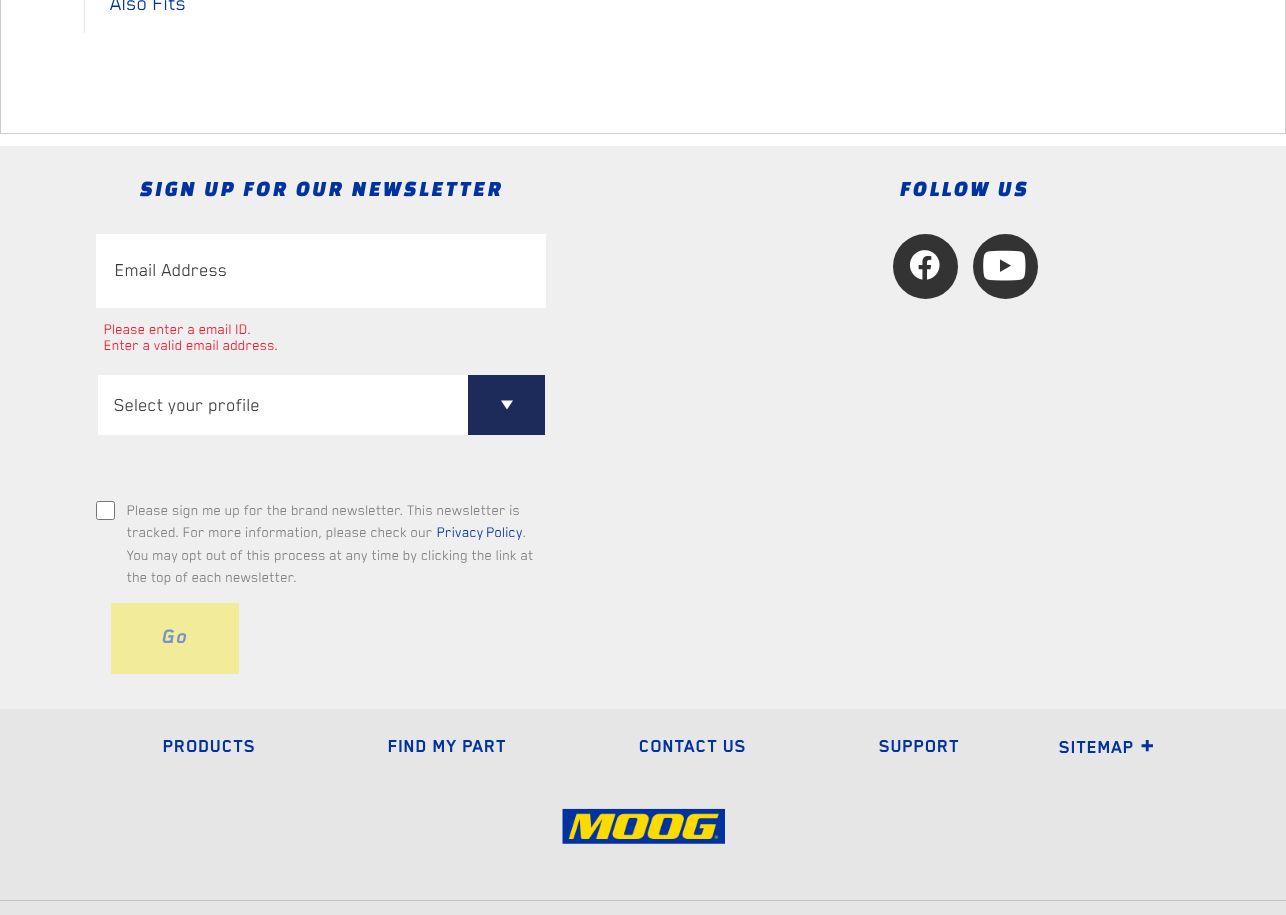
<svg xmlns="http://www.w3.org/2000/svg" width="1286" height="915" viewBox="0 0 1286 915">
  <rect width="100%" height="100%" fill="rgb(255,255,255)"/>
  <rect x="0.5" y="-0.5" width="1285" height="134" fill="none" stroke="rgb(204,204,204)"/>
  <rect x="84" y="0" width="1" height="33" fill="rgb(230,230,230)"/>
  <text x="110" y="10" font-family="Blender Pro" font-size="22.5" fill="rgb(0,50,160)">Also Fits</text>
  <rect x="0" y="146" width="1286" height="563" fill="rgb(239,239,239)"/>
  <text x="140" y="196" font-family="Changa One" font-size="22.5" font-style="italic" letter-spacing="2.5" fill="rgb(0,50,160)">SIGN UP FOR OUR NEWSLETTER</text>
  <rect x="96" y="234" width="450" height="74" fill="rgb(255,255,255)"/>
  <text x="115" y="276" font-family="Blender Pro" font-size="20" fill="rgb(62,62,62)">Email Address</text>
  <g font-family="Blender Pro" font-size="16" fill="rgb(238,27,46)">
    <text>
      <tspan x="104" y="334">Please enter a email ID.</tspan>
      <tspan x="104" y="350">Enter a valid email address.</tspan>
    </text>
  </g>
  <rect x="98" y="375" width="370" height="60" fill="rgb(255,255,255)"/>
  <rect x="468" y="375" width="77" height="60" fill="rgb(29,43,90)"/>
  <path d="M501 400.5H513L507 409.5Z" fill="rgb(255,255,255)"/>
  <text x="114" y="411" font-family="Blender Pro" font-size="20" fill="rgb(62,62,62)">Select your profile</text>
  <rect x="96.5" y="501.5" width="18" height="18" rx="2" fill="rgb(255,255,255)" stroke="rgb(118,118,118)"/>
  <g font-family="Blender Pro" font-size="16" fill="rgb(128,128,128)">
    <text>
      <tspan x="127" y="515">Please sign me up for the brand newsletter. This newsletter is</tspan>
      <tspan x="127" y="537">tracked. For more information, please check our</tspan>
    </text>
  </g>
  <text x="437" y="537" word-spacing="-1" font-family="Blender Pro" font-size="16" fill="rgb(0,50,160)">Privacy Policy</text>
  <g font-family="Blender Pro" font-size="16" fill="rgb(128,128,128)">
    <text x="523" y="537">.</text>
    <text>
      <tspan x="127" y="560">You may opt out of this process at any time by clicking the link at</tspan>
      <tspan x="127" y="582">the top of each newsletter.</tspan>
    </text>
  </g>
  <rect x="111" y="603" width="128" height="71" fill="rgb(242,236,154)"/>
  <text x="161" y="643" font-family="Blender Pro" font-size="22.5" font-weight="bold" font-style="italic" letter-spacing="1" fill="rgb(120,145,200)">Go</text>
  <text x="900" y="196" font-family="Changa One" font-size="22.5" font-style="italic" letter-spacing="2.5" fill="rgb(0,50,160)">FOLLOW US</text>
  <circle cx="925.5" cy="266.5" r="32.5" fill="rgb(51,51,51)"/>
  <image x="909" y="250" width="31" height="30" href="pic1.png"/>
  <circle cx="1005.5" cy="266.5" r="32.5" fill="rgb(51,51,51)"/>
  <image x="983" y="250" width="43" height="31" href="pic2.png"/>
  <rect x="0" y="709" width="1286" height="206" fill="rgb(230,230,230)"/>
  <g font-family="Blender Pro" font-size="20" font-weight="bold" letter-spacing="0.5" fill="rgb(0,50,160)">
    <text x="163" y="752">PRODUCTS</text>
    <text x="388" y="752">FIND MY PART</text>
    <text x="639" y="752">CONTACT US</text>
    <text x="879" y="752">SUPPORT</text>
    <text x="1059" y="753">SITEMAP</text>
  </g>
  <text x="1140" y="753" font-family="Blender Pro" font-size="30" font-weight="bold" letter-spacing="0.5" fill="rgb(0,50,160)">+</text>
  <image x="562" y="808" width="163" height="36" href="pic3.png"/>
  <rect x="0" y="900" width="1286" height="1" fill="rgb(194,194,194)"/>
</svg>
